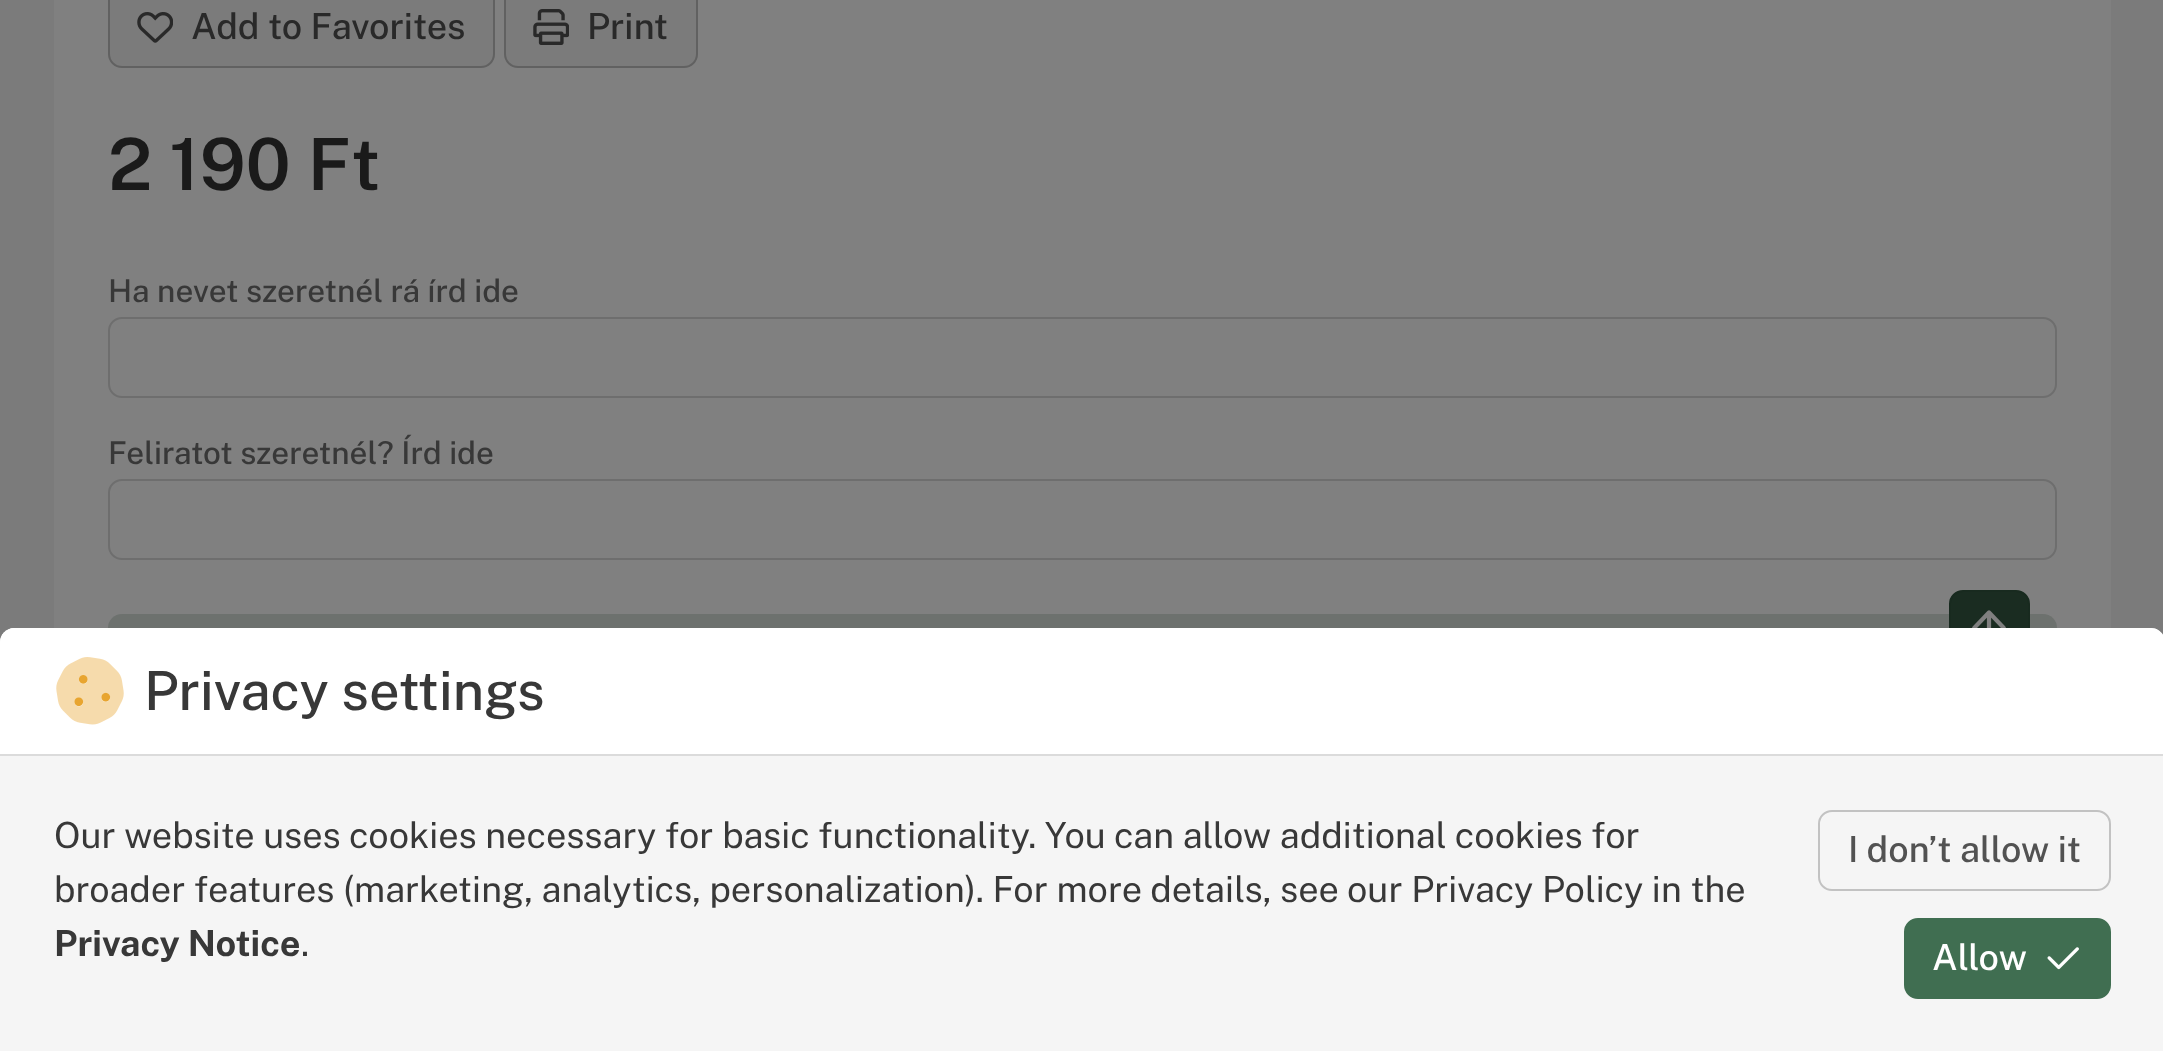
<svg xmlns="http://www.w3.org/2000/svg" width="2163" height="1051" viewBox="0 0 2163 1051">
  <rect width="100%" height="100%" fill="rgb(123,123,123)"/>
  <rect x="54" y="0" width="2057" height="628" fill="rgb(128,128,128)"/>
  <rect x="109" y="-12" width="385" height="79" rx="13" fill="rgb(123,123,123)" stroke="rgb(97,97,97)" stroke-width="2"/>
  <image x="137" y="12" width="36" height="31" href="pic1.png"/>
  <text x="191" y="39" font-family="Public Sans" font-size="36" font-weight="500" fill="rgb(41,41,41)">Add to Favorites</text>
  <rect x="505" y="-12" width="192" height="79" rx="13" fill="rgb(123,123,123)" stroke="rgb(97,97,97)" stroke-width="2"/>
  <image x="533" y="9" width="36" height="36" href="pic2.png"/>
  <text x="587" y="39" font-family="Public Sans" font-size="36" font-weight="500" fill="rgb(41,41,41)">Print</text>
  <text x="108" y="190" font-family="Public Sans" font-size="72" font-weight="600" fill="rgb(26,26,26)">2 190 Ft</text>
  <text x="108" y="302" font-family="Public Sans" font-size="31.5" font-weight="500" fill="rgb(56,56,56)">Ha nevet szeretnél rá írd ide</text>
  <rect x="109" y="318" width="1947" height="79" rx="13" fill="none" stroke="rgb(110,110,110)" stroke-width="2"/>
  <text x="108" y="464" font-family="Public Sans" font-size="31.5" font-weight="500" fill="rgb(56,56,56)">Feliratot szeretnél? Írd ide</text>
  <rect x="109" y="480" width="1947" height="79" rx="13" fill="none" stroke="rgb(110,110,110)" stroke-width="2"/>
  <rect x="108" y="614" width="1949" height="93" rx="14" fill="rgb(109,113,110)"/>
  <rect x="1950" y="591" width="79" height="79" rx="13" fill="rgb(26,44,33)" stroke="rgb(24,42,31)" stroke-width="2"/>
  <image x="1972" y="610" width="34" height="18" href="pic3.png"/>
  <path d="M14 628H2151C2158.5 628 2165 634.5 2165 642V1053H0V642C0 634.5 6.5 628 14 628Z" fill="rgb(245,245,245)"/>
  <path d="M14 628H2151C2158.5 628 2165 634.5 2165 642V756H0V642C0 634.5 6.5 628 14 628Z" fill="rgb(255,255,255)"/>
  <rect x="0" y="754" width="2163" height="2" fill="rgb(219,219,219)"/>
  <image x="56" y="657" width="68" height="68" href="pic4.png"/>
  <text x="144" y="710" font-family="Public Sans" font-size="54" font-weight="500" fill="rgb(56,56,56)">Privacy settings</text>
  <g font-family="Public Sans" font-size="36" fill="rgb(56,56,56)">
    <text>
      <tspan x="54" y="848">Our website uses cookies necessary for basic functionality. You can allow additional cookies for</tspan>
      <tspan x="54" y="902">broader features (marketing, analytics, personalization). For more details, see our Privacy Policy in the</tspan>
    </text>
  </g>
  <text x="54" y="956" font-family="Public Sans" font-size="36" font-weight="bold" fill="rgb(56,56,56)">Privacy Notice</text>
  <text x="301" y="956" font-family="Public Sans" font-size="36" fill="rgb(56,56,56)">.</text>
  <rect x="1819" y="811" width="291" height="79" rx="13" fill="none" stroke="rgb(194,194,194)" stroke-width="2"/>
  <text x="1848" y="862" font-family="Public Sans" font-size="36" font-weight="500" fill="rgb(82,82,82)">I don’t allow it</text>
  <rect x="1905" y="919" width="205" height="79" rx="13" fill="rgb(64,110,81)" stroke="rgb(64,110,81)" stroke-width="2"/>
  <text x="1932" y="970" font-family="Public Sans" font-size="36" font-weight="500" fill="rgb(255,255,255)">Allow</text>
  <image x="2047" y="947" width="32" height="23" href="pic5.png"/>
</svg>
